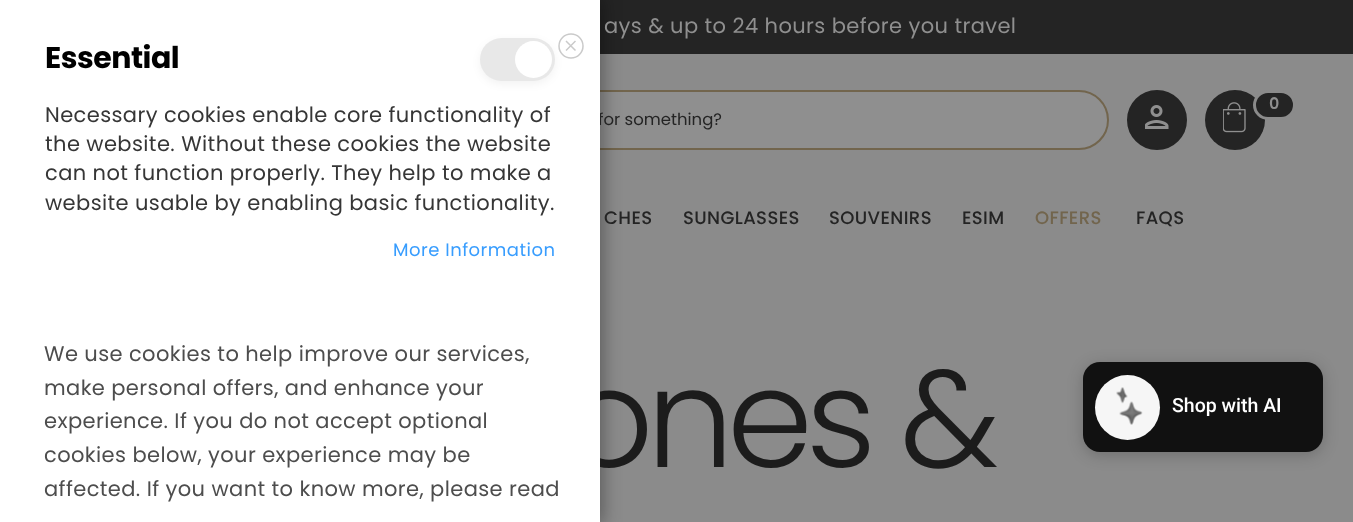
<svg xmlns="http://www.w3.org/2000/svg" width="1353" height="522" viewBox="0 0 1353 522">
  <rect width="100%" height="100%" fill="rgb(139,139,139)"/>
  <rect x="600" y="0" width="753" height="54" fill="rgb(36,36,36)"/>
  <rect x="462" y="91" width="646" height="58" rx="29" fill="rgb(143,143,143)" stroke="rgb(114,101,77)" stroke-width="2"/>
  <rect x="-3" y="-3" width="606" height="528" fill="rgba(0,0,0,0.35)" filter="blur(9px)"/>
  <text x="598" y="125" font-family="Poppins" font-size="16.5" fill="rgb(36,36,36)">for something?</text>
  <text x="565" y="467" font-family="Poppins" font-size="138" font-weight="300" letter-spacing="-7" fill="rgb(28,28,28)">ones &amp;</text>
  <rect x="0" y="0" width="600" height="522" fill="rgb(255,255,255)"/>
  <text x="45" y="68" font-family="Poppins" font-size="30" font-weight="bold" letter-spacing="-0.5" fill="rgb(0,0,0)">Essential</text>
  <circle cx="571" cy="46" r="12" fill="none" stroke="rgb(202,202,202)" stroke-width="1.5"/>
  <path d="M566 41L575.5 50.5M575.5 41L566 50.5" fill="none" stroke="rgb(202,202,202)" stroke-width="1.5"/>
  <rect x="480" y="41" width="75" height="43" rx="21.5" fill="rgba(0,0,0,0.05)" filter="blur(4px)"/>
  <rect x="480" y="38" width="75" height="43" rx="21.5" fill="rgb(232,232,232)"/>
  <circle cx="533.5" cy="59.5" r="18.5" fill="rgb(255,255,255)"/>
  <g font-family="Poppins" font-size="21" letter-spacing="0.4" fill="rgb(54,54,54)">
    <text>
      <tspan x="45" y="122">Necessary cookies enable core functionality of</tspan>
      <tspan x="45" y="151">the website. Without these cookies the website</tspan>
      <tspan x="45" y="180">can not function properly. They help to make a</tspan>
      <tspan x="45" y="210">website usable by enabling basic functionality.</tspan>
    </text>
  </g>
  <text x="393" y="256" font-family="Poppins" font-size="18" letter-spacing="0.5" fill="rgb(56,157,254)">More Information</text>
  <g font-family="Poppins" font-size="21" letter-spacing="0.4" fill="rgb(77,77,77)">
    <text>
      <tspan x="44" y="361">We use cookies to help improve our services,</tspan>
      <tspan x="44" y="395">make personal offers, and enhance your</tspan>
      <tspan x="44" y="428">experience. If you do not accept optional</tspan>
      <tspan x="44" y="462">cookies below, your experience may be</tspan>
      <tspan x="44" y="496">affected. If you want to know more, please read</tspan>
    </text>
  </g>
  <text x="604" y="33" font-family="Poppins" font-size="21" letter-spacing="0.4" fill="rgb(143,143,143)">ays &amp; up to 24 hours before you travel</text>
  <circle cx="1157" cy="120" r="29" fill="rgb(36,36,36)" stroke="rgb(36,36,36)" stroke-width="2"/>
  <image x="1145" y="105" width="24" height="24" href="pic1.png"/>
  <circle cx="1235" cy="120" r="30" fill="rgb(36,36,36)"/>
  <image x="1223" y="102" width="23" height="31" href="pic2.png"/>
  <rect x="1254.5" y="91.5" width="40" height="27" rx="13.5" fill="rgb(36,36,36)" stroke="rgb(139,139,139)" stroke-width="3"/>
  <text x="1269" y="109" font-family="Poppins" font-size="16" font-weight="600" letter-spacing="0.4" fill="rgb(143,143,143)">0</text>
  <g font-family="Poppins" font-size="18" font-weight="500" letter-spacing="0.4" fill="rgb(36,36,36)">
    <text x="604" y="224">CHES</text>
    <text x="683" y="224">SUNGLASSES</text>
    <text x="829" y="224">SOUVENIRS</text>
    <text x="962" y="224">ESIM</text>
  </g>
  <text x="1035" y="224" font-family="Poppins" font-size="18" font-weight="500" letter-spacing="0.4" fill="rgb(114,101,77)">OFFERS</text>
  <text x="1136" y="224" font-family="Poppins" font-size="18" font-weight="500" letter-spacing="0.4" fill="rgb(36,36,36)">FAQS</text>
  <rect x="1083" y="365" width="240" height="90" rx="17" fill="rgba(0,0,0,0.2)" filter="blur(7.5px)"/>
  <rect x="1083" y="362" width="240" height="90" rx="17" fill="rgb(17,17,17)"/>
  <circle cx="1127.5" cy="407.5" r="32.5" fill="rgb(246,246,246)"/>
  <image x="1116" y="387" width="27" height="38" href="pic3.png"/>
  <text x="1172" y="412" font-family="Roboto" font-size="19.5" font-weight="500" fill="rgb(255,255,255)">Shop with AI</text>
</svg>
